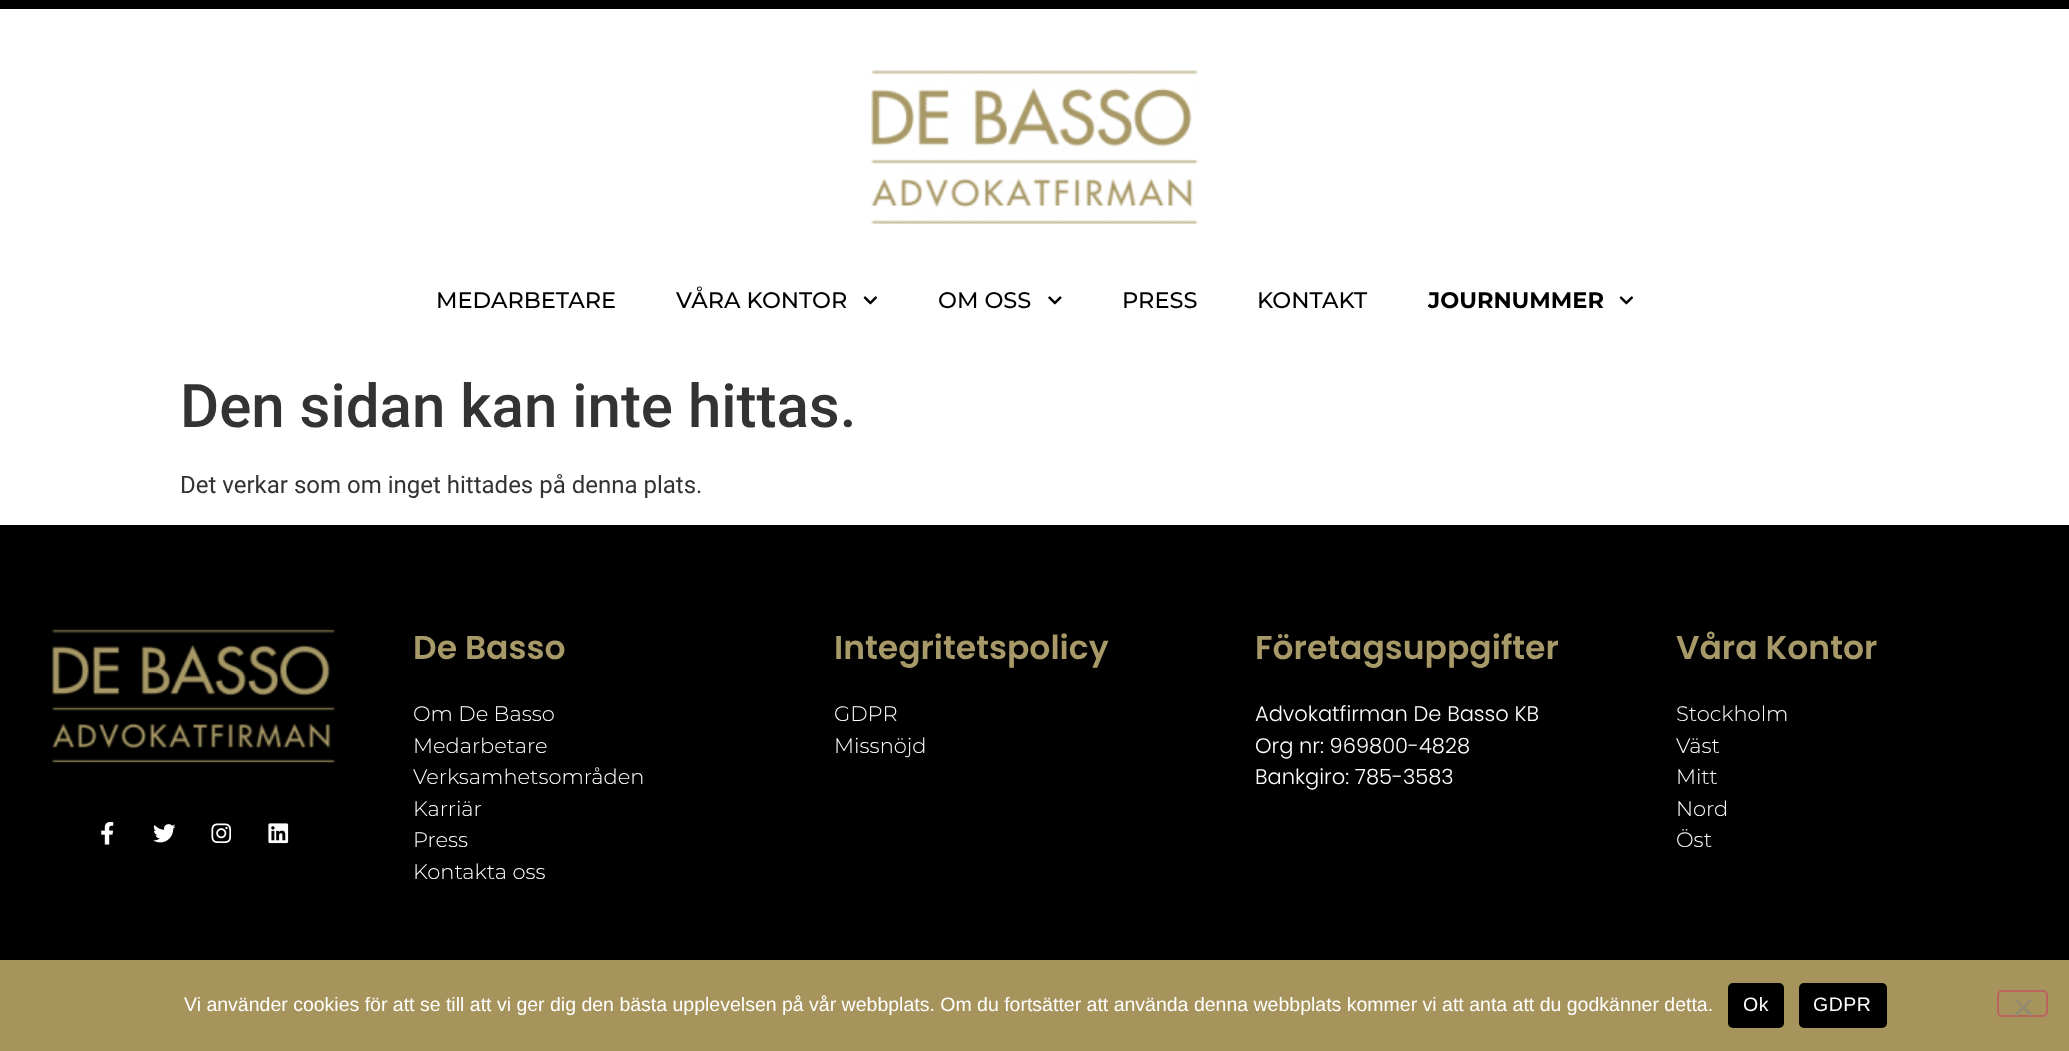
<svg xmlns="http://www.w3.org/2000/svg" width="2069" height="1051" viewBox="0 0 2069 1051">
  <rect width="100%" height="100%" fill="rgb(255,255,255)"/>
  <rect x="0" y="0" width="2069" height="9" fill="rgb(0,0,0)"/>
  <image x="871" y="70" width="327" height="154" href="pic1.png"/>
  <g font-family="Montserrat" font-size="22.5" font-weight="500" fill="rgb(0,0,0)">
    <text x="436" y="308">MEDARBETARE</text>
    <text x="676" y="308">VÅRA KONTOR</text>
  </g>
  <image x="863" y="296" width="14" height="9" href="pic2.png"/>
  <text x="938" y="308" font-family="Montserrat" font-size="22.5" font-weight="500" fill="rgb(0,0,0)">OM OSS</text>
  <image x="1048" y="296" width="14" height="9" href="pic3.png"/>
  <g font-family="Montserrat" font-size="22.5" font-weight="500" fill="rgb(0,0,0)">
    <text x="1122" y="308">PRESS</text>
    <text x="1257" y="308">KONTAKT</text>
  </g>
  <text x="1428" y="308" font-family="Montserrat" font-size="22.5" font-weight="bold" fill="rgb(0,0,0)">JOURNUMMER</text>
  <image x="1619" y="296" width="14" height="9" href="pic2.png"/>
  <text x="180" y="427" font-family="Roboto" font-size="60" font-weight="500" fill="rgb(51,51,51)">Den sidan kan inte hittas.</text>
  <text x="180" y="493" font-family="Roboto" font-size="24" fill="rgb(51,51,51)">Det verkar som om inget hittades på denna plats.</text>
  <rect x="0" y="525" width="2069" height="435" fill="rgb(0,0,0)"/>
  <image x="52" y="629" width="283" height="134" href="pic4.png"/>
  <image x="101" y="822" width="13" height="23" href="pic5.png"/>
  <image x="153" y="824" width="23" height="19" href="pic6.png"/>
  <image x="211" y="823" width="21" height="20" href="pic7.png"/>
  <image x="268" y="823" width="21" height="21" href="pic8.png"/>
  <text x="413" y="659" font-family="Poppins" font-size="33" font-weight="600" fill="rgb(168,153,104)">De Basso</text>
  <g font-family="Montserrat" font-size="21" font-weight="300" fill="rgb(255,255,255)">
    <text>
      <tspan x="413" y="721">Om De Basso</tspan>
      <tspan x="413" y="753">Medarbetare</tspan>
      <tspan x="413" y="784">Verksamhetsområden</tspan>
      <tspan x="413" y="816">Karriär</tspan>
      <tspan x="413" y="847">Press</tspan>
      <tspan x="413" y="879">Kontakta oss</tspan>
    </text>
  </g>
  <text x="834" y="659" font-family="Poppins" font-size="33" font-weight="600" fill="rgb(168,153,104)">Integritetspolicy</text>
  <g font-family="Montserrat" font-size="21" font-weight="300" fill="rgb(255,255,255)">
    <text>
      <tspan x="834" y="721">GDPR</tspan>
      <tspan x="834" y="753">Missnöjd</tspan>
    </text>
  </g>
  <text x="1255" y="659" font-family="Poppins" font-size="33" font-weight="600" fill="rgb(168,153,104)">Företagsuppgifter</text>
  <g font-family="Poppins" font-size="21" font-weight="300" fill="rgb(255,255,255)">
    <text>
      <tspan x="1255" y="721">Advokatfirman De Basso KB</tspan>
      <tspan x="1255" y="753">Org nr: 969800-4828</tspan>
      <tspan x="1255" y="784">Bankgiro: 785-3583</tspan>
    </text>
  </g>
  <text x="1676" y="659" font-family="Poppins" font-size="33" font-weight="600" fill="rgb(168,153,104)">Våra Kontor</text>
  <g font-family="Montserrat" font-size="21" font-weight="300" fill="rgb(255,255,255)">
    <text>
      <tspan x="1676" y="721">Stockholm</tspan>
      <tspan x="1676" y="753">Väst</tspan>
      <tspan x="1676" y="784">Mitt</tspan>
      <tspan x="1676" y="816">Nord</tspan>
      <tspan x="1676" y="847">Öst</tspan>
    </text>
  </g>
  <rect x="0" y="960" width="2069" height="91" fill="rgb(167,148,93)"/>
  <text x="184" y="1011" font-family="Liberation Sans" font-size="19.5" fill="rgb(255,255,255)">Vi använder cookies för att se till att vi ger dig den bästa upplevelsen på vår webbplats. Om du fortsätter att använda denna webbplats kommer vi att anta att du godkänner detta.</text>
  <rect x="1728" y="983" width="56" height="45" rx="5" fill="rgb(0,0,0)"/>
  <text x="1743" y="1011" font-family="Liberation Sans" font-size="19.5" letter-spacing="0.5" fill="rgb(255,255,255)">Ok</text>
  <rect x="1799" y="983" width="88" height="45" rx="5" fill="rgb(0,0,0)"/>
  <text x="1813" y="1011" font-family="Liberation Sans" font-size="19.5" letter-spacing="0.5" fill="rgb(255,255,255)">GDPR</text>
  <rect x="1998" y="991" width="49" height="25" rx="4" fill="none" stroke="rgb(186,100,98)" stroke-width="2"/>
  <path d="M2030.5 998.5L2032.5 1000.5L2016.5 1016.5L2014.5 1014.5Z" fill="rgb(148,138,111)"/>
  <path d="M2014.5 1000.5L2016.5 998.5L2032.5 1014.5L2030.5 1016.5Z" fill="rgb(148,138,111)"/>
</svg>
